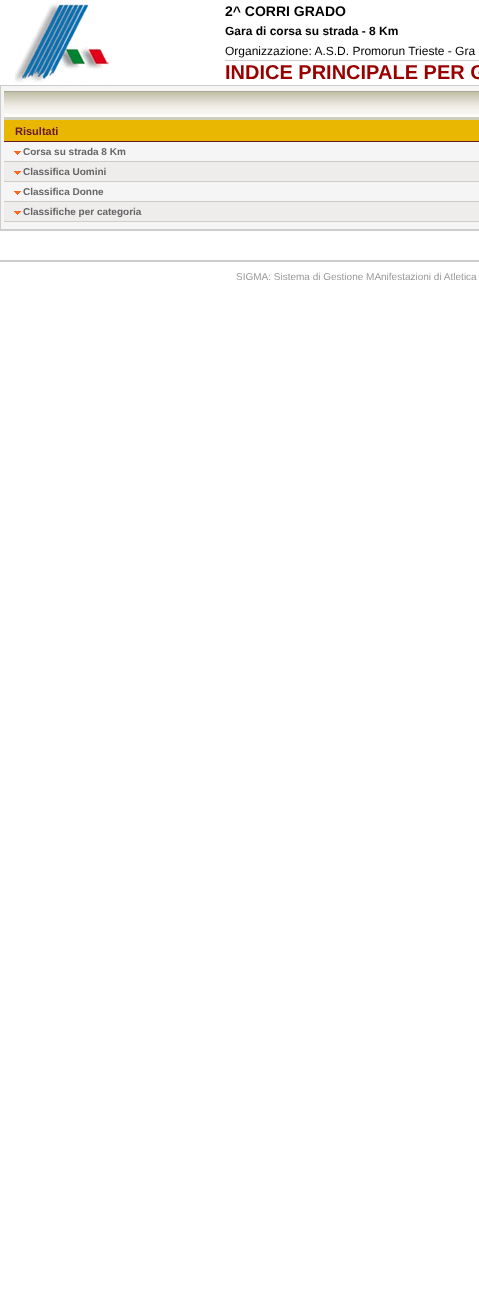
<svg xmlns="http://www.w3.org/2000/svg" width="479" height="1293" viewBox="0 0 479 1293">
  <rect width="100%" height="100%" fill="rgb(255,255,255)"/>
  <image x="15" y="3" width="95" height="81" href="pic1.png"/>
  <text x="225" y="16" font-family="Liberation Sans" font-size="14" font-weight="bold" fill="rgb(0,0,0)">2^ CORRI GRADO</text>
  <text x="225" y="35" font-family="Liberation Sans" font-size="12" font-weight="bold" fill="rgb(0,0,0)">Gara di corsa su strada - 8 Km</text>
  <rect x="225" y="60" width="254" height="1" fill="rgb(204,204,204)"/>
  <text x="225" y="55" font-family="Liberation Sans" font-size="12" fill="rgb(0,0,0)">Organizzazione: A.S.D. Promorun Trieste - Gra</text>
  <text x="225" y="79" font-family="Liberation Sans" font-size="20" font-weight="bold" fill="rgb(153,0,0)">INDICE PRINCIPALE PER G</text>
  <rect x="1" y="86" width="478" height="143" fill="rgb(245,245,245)"/>
  <rect x="0" y="85" width="479" height="1" fill="rgb(204,204,204)"/>
  <rect x="0" y="229" width="479" height="2" fill="rgb(204,204,204)"/>
  <rect x="0" y="85" width="1" height="146" fill="rgb(204,204,204)"/>
  <image x="4" y="91" width="475" height="29" href="pic2.png"/>
  <rect x="4" y="120" width="475" height="21" fill="rgb(233,183,2)"/>
  <rect x="4" y="141" width="475" height="1" fill="rgb(104,23,38)"/>
  <text x="15" y="135" font-family="Liberation Sans" font-size="11" font-weight="bold" fill="rgb(104,23,38)">Risultati</text>
  <rect x="4" y="161" width="475" height="1" fill="rgb(204,204,204)"/>
  <image x="14" y="151" width="7" height="4" href="pic3.png"/>
  <text x="23" y="155" font-family="Liberation Sans" font-size="10" font-weight="bold" fill="rgb(102,102,102)">Corsa su strada 8 Km</text>
  <rect x="4" y="162" width="475" height="19" fill="rgb(239,236,236)"/>
  <rect x="4" y="181" width="475" height="1" fill="rgb(204,204,204)"/>
  <image x="14" y="171" width="7" height="4" href="pic4.png"/>
  <text x="23" y="175" font-family="Liberation Sans" font-size="10" font-weight="bold" fill="rgb(102,102,102)">Classifica Uomini</text>
  <rect x="4" y="201" width="475" height="1" fill="rgb(204,204,204)"/>
  <image x="14" y="191" width="7" height="4" href="pic3.png"/>
  <text x="23" y="195" font-family="Liberation Sans" font-size="10" font-weight="bold" fill="rgb(102,102,102)">Classifica Donne</text>
  <rect x="4" y="202" width="475" height="19" fill="rgb(239,236,236)"/>
  <rect x="4" y="221" width="475" height="1" fill="rgb(204,204,204)"/>
  <image x="14" y="211" width="7" height="4" href="pic4.png"/>
  <text x="23" y="215" font-family="Liberation Sans" font-size="10" font-weight="bold" fill="rgb(102,102,102)">Classifiche per categoria</text>
  <rect x="0" y="260" width="479" height="2" fill="rgb(204,204,204)"/>
  <text x="236" y="280" font-family="Liberation Sans" font-size="10" fill="rgb(153,153,153)">SIGMA: Sistema di Gestione MAnifestazioni di Atletica</text>
</svg>
